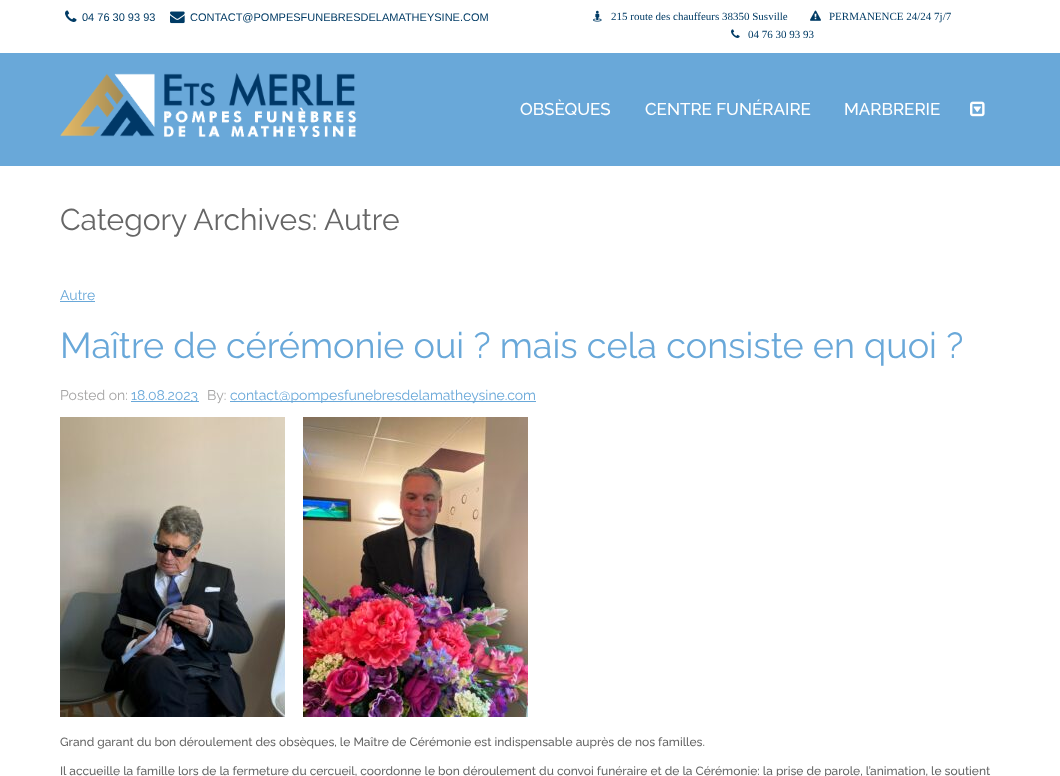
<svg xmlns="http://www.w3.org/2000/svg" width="1060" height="776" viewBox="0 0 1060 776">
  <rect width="100%" height="100%" fill="rgb(255,255,255)"/>
  <image x="65" y="10" width="12" height="12" href="pic1.png"/>
  <text x="82" y="21" font-family="Liberation Sans" font-size="11" fill="rgb(0,59,101)">04 76 30 93 93</text>
  <image x="170" y="11" width="15" height="13" href="pic2.png"/>
  <text x="190" y="21" font-family="Liberation Sans" font-size="11" fill="rgb(0,59,101)">CONTACT@POMPESFUNEBRESDELAMATHEYSINE.COM</text>
  <image x="593" y="10" width="9" height="12" href="pic3.png"/>
  <text x="611" y="20" font-family="Liberation Serif" font-size="11" fill="rgb(0,59,101)">215 route des chauffeurs 38350 Susville</text>
  <image x="810" y="10" width="11" height="11" href="pic4.png"/>
  <text x="829" y="20" font-family="Liberation Serif" font-size="11" fill="rgb(0,59,101)">PERMANENCE 24/24 7j/7</text>
  <image x="731" y="29" width="9" height="9" href="pic5.png"/>
  <text x="748" y="38" font-family="Liberation Serif" font-size="11" fill="rgb(0,59,101)">04 76 30 93 93</text>
  <rect x="0" y="53" width="1060" height="113" fill="rgb(105,168,217)"/>
  <image x="60" y="73" width="297" height="64" href="pic6.png"/>
  <g font-family="Raleway" font-size="17" font-weight="500" fill="rgb(255,255,255)">
    <text x="520" y="115">OBSÈQUES</text>
    <text x="645" y="115">CENTRE FUNÉRAIRE</text>
    <text x="844" y="115">MARBRERIE</text>
  </g>
  <image x="970" y="101" width="15" height="16" href="pic7.png"/>
  <text x="60" y="230" font-family="Raleway" font-size="30" fill="rgb(102,102,102)">Category Archives: Autre</text>
  <text x="60" y="300" font-family="Raleway" font-size="14" fill="rgb(105,168,217)">Autre</text>
  <rect x="60" y="301" width="35" height="1" fill="rgb(105,168,217)"/>
  <text x="60" y="358" font-family="Raleway" font-size="36" fill="rgb(105,168,217)">Maître de cérémonie oui ? mais cela consiste en quoi ?</text>
  <text x="60" y="400" font-family="Raleway" font-size="14" fill="rgb(165,164,164)">Posted on:</text>
  <rect x="131" y="401" width="68" height="1" fill="rgb(105,168,217)"/>
  <text x="131" y="400" font-family="Raleway" font-size="14" fill="rgb(105,168,217)">18.08.2023</text>
  <text x="207" y="400" font-family="Raleway" font-size="14" fill="rgb(165,164,164)">By:</text>
  <rect x="230" y="401" width="306" height="1" fill="rgb(105,168,217)"/>
  <text x="230" y="400" font-family="Raleway" font-size="14" fill="rgb(105,168,217)">contact@pompesfunebresdelamatheysine.com</text>
  <image x="60" y="417" width="225" height="300" href="pic8.png"/>
  <image x="303" y="417" width="225" height="300" href="pic9.png"/>
  <g font-family="Raleway" font-size="12" font-weight="500" fill="rgb(102,102,102)">
    <text x="60" y="746">Grand garant du bon déroulement des obsèques, le Maître de Cérémonie est indispensable auprès de nos familles.</text>
    <text x="60" y="775">Il accueille la famille lors de la fermeture du cercueil, coordonne le bon déroulement du convoi funéraire et de la Cérémonie: la prise de parole, l’animation, le soutient</text>
  </g>
</svg>
